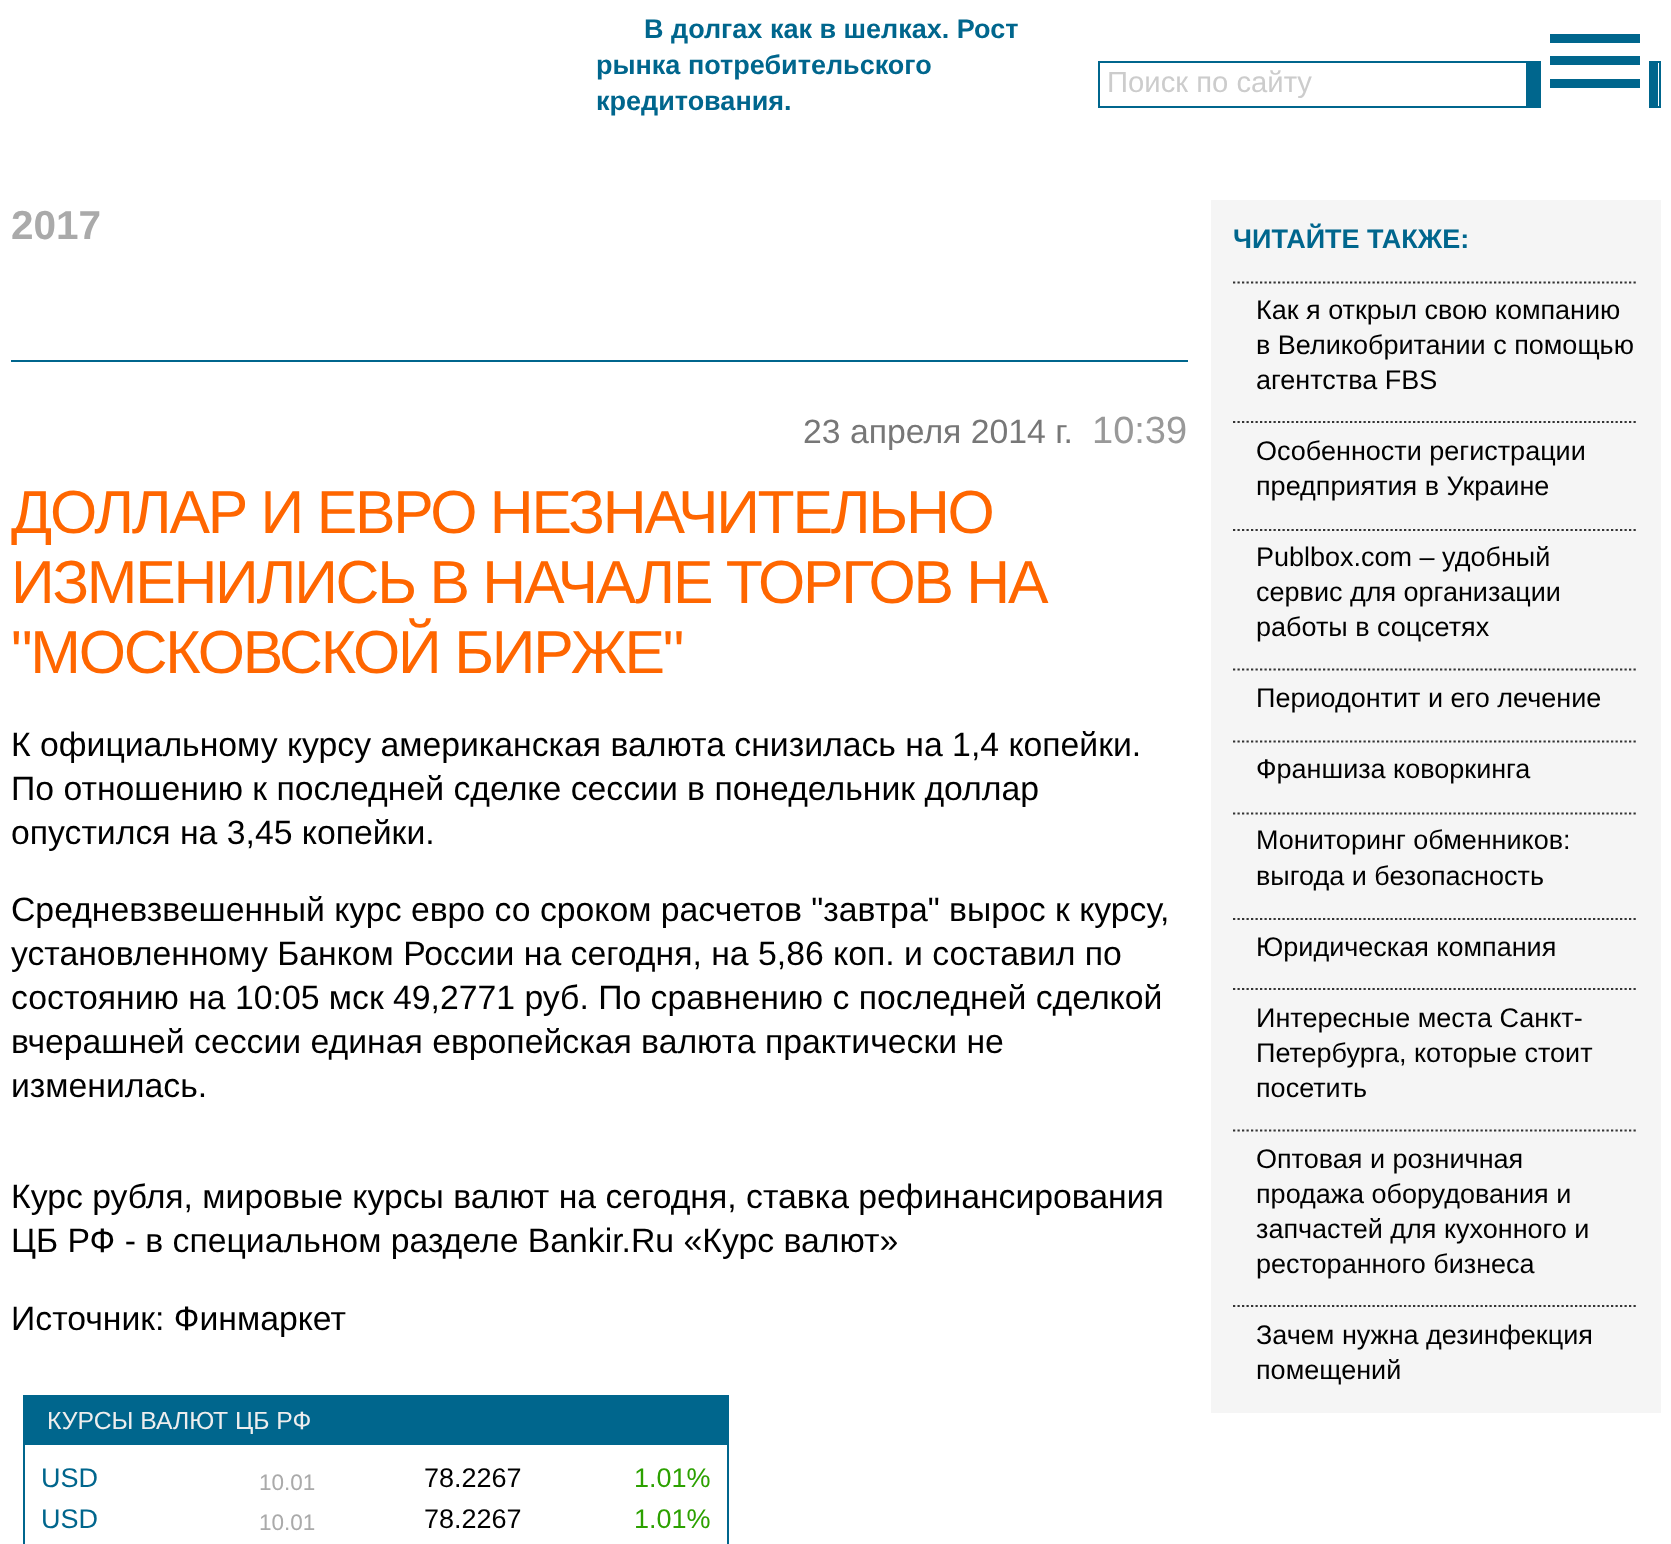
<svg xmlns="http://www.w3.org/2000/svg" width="1671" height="1544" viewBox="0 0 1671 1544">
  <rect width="100%" height="100%" fill="rgb(255,255,255)"/>
  <g font-family="Liberation Sans" font-size="27" font-weight="bold" fill="rgb(0,102,141)">
    <text x="644" y="38">В долгах как в шелках. Рост</text>
    <text>
      <tspan x="596" y="74">рынка потребительского</tspan>
      <tspan x="596" y="110">кредитования.</tspan>
    </text>
  </g>
  <rect x="1099" y="62" width="561" height="45" fill="none" stroke="rgb(0,102,141)" stroke-width="2"/>
  <text x="1107" y="92" font-family="Liberation Sans" font-size="29.25" fill="rgb(204,204,204)">Поиск по сайту</text>
  <rect x="1526" y="63" width="132" height="43" fill="rgb(0,102,141)"/>
  <rect x="1541" y="61" width="108" height="47" fill="rgb(255,255,255)"/>
  <rect x="1550" y="56" width="90" height="9" fill="rgb(0,102,141)"/>
  <rect x="1550" y="34" width="90" height="9" fill="rgb(0,102,141)"/>
  <rect x="1550" y="79" width="90" height="9" fill="rgb(0,102,141)"/>
  <text x="11" y="239" font-family="Liberation Sans" font-size="40.5" font-weight="bold" fill="rgb(170,170,170)">2017</text>
  <rect x="1211" y="200" width="450" height="1213" fill="rgb(245,245,245)"/>
  <text x="1233" y="248" font-family="Liberation Sans" font-size="27" font-weight="bold" fill="rgb(0,102,141)">ЧИТАЙТЕ ТАКЖЕ:</text>
  <path d="M1233 282.5H1638" fill="none" stroke="rgb(51,51,51)" stroke-width="2.2" stroke-dasharray="2.25 2.25"/>
  <g font-family="Liberation Sans" font-size="27" fill="rgb(0,0,0)">
    <text>
      <tspan x="1256" y="319">Как я открыл свою компанию</tspan>
      <tspan x="1256" y="354">в Великобритании с помощью</tspan>
      <tspan x="1256" y="389">агентства FBS</tspan>
    </text>
  </g>
  <path d="M1233 422H1638" fill="none" stroke="rgb(51,51,51)" stroke-width="2.2" stroke-dasharray="2.25 2.25"/>
  <g font-family="Liberation Sans" font-size="27" fill="rgb(0,0,0)">
    <text>
      <tspan x="1256" y="460">Особенности регистрации</tspan>
      <tspan x="1256" y="495">предприятия в Украине</tspan>
    </text>
  </g>
  <path d="M1233 530H1638" fill="none" stroke="rgb(51,51,51)" stroke-width="2.2" stroke-dasharray="2.25 2.25"/>
  <g font-family="Liberation Sans" font-size="27" fill="rgb(0,0,0)">
    <text>
      <tspan x="1256" y="566">Publbox.com – удобный</tspan>
      <tspan x="1256" y="601">сервис для организации</tspan>
      <tspan x="1256" y="636">работы в соцсетях</tspan>
    </text>
  </g>
  <path d="M1233 669.5H1638" fill="none" stroke="rgb(51,51,51)" stroke-width="2.2" stroke-dasharray="2.25 2.25"/>
  <text x="1256" y="707" font-family="Liberation Sans" font-size="27" fill="rgb(0,0,0)">Периодонтит и его лечение</text>
  <path d="M1233 741.5H1638" fill="none" stroke="rgb(51,51,51)" stroke-width="2.2" stroke-dasharray="2.25 2.25"/>
  <text x="1256" y="778" font-family="Liberation Sans" font-size="27" fill="rgb(0,0,0)">Франшиза коворкинга</text>
  <path d="M1233 813.5H1638" fill="none" stroke="rgb(51,51,51)" stroke-width="2.2" stroke-dasharray="2.25 2.25"/>
  <g font-family="Liberation Sans" font-size="27" fill="rgb(0,0,0)">
    <text>
      <tspan x="1256" y="849">Мониторинг обменников:</tspan>
      <tspan x="1256" y="885">выгода и безопасность</tspan>
    </text>
  </g>
  <path d="M1233 919H1638" fill="none" stroke="rgb(51,51,51)" stroke-width="2.2" stroke-dasharray="2.25 2.25"/>
  <text x="1256" y="956" font-family="Liberation Sans" font-size="27" fill="rgb(0,0,0)">Юридическая компания</text>
  <path d="M1233 989H1638" fill="none" stroke="rgb(51,51,51)" stroke-width="2.2" stroke-dasharray="2.25 2.25"/>
  <g font-family="Liberation Sans" font-size="27" fill="rgb(0,0,0)">
    <text>
      <tspan x="1256" y="1027">Интересные места Санкт-</tspan>
      <tspan x="1256" y="1062">Петербурга, которые стоит</tspan>
      <tspan x="1256" y="1097">посетить</tspan>
    </text>
  </g>
  <path d="M1233 1130.5H1638" fill="none" stroke="rgb(51,51,51)" stroke-width="2.2" stroke-dasharray="2.25 2.25"/>
  <g font-family="Liberation Sans" font-size="27" fill="rgb(0,0,0)">
    <text>
      <tspan x="1256" y="1168">Оптовая и розничная</tspan>
      <tspan x="1256" y="1203">продажа оборудования и</tspan>
      <tspan x="1256" y="1238">запчастей для кухонного и</tspan>
      <tspan x="1256" y="1273">ресторанного бизнеса</tspan>
    </text>
  </g>
  <path d="M1233 1306H1638" fill="none" stroke="rgb(51,51,51)" stroke-width="2.2" stroke-dasharray="2.25 2.25"/>
  <g font-family="Liberation Sans" font-size="27" fill="rgb(0,0,0)">
    <text>
      <tspan x="1256" y="1344">Зачем нужна дезинфекция</tspan>
      <tspan x="1256" y="1379">помещений</tspan>
    </text>
  </g>
  <rect x="11" y="360" width="1177" height="2" fill="rgb(0,102,141)"/>
  <text x="803" y="443" font-family="Liberation Sans" font-size="33.75" fill="rgb(119,119,119)">23 апреля 2014 г.</text>
  <text x="1092" y="443" font-family="Liberation Sans" font-size="38" fill="rgb(153,153,153)">10:39</text>
  <g font-family="Liberation Sans" font-size="60.75" letter-spacing="-2.25" fill="rgb(255,102,0)">
    <text>
      <tspan x="11" y="533">ДОЛЛАР И ЕВРО НЕЗНАЧИТЕЛЬНО</tspan>
      <tspan x="11" y="603">ИЗМЕНИЛИСЬ В НАЧАЛЕ ТОРГОВ НА</tspan>
      <tspan x="11" y="673">"МОСКОВСКОЙ БИРЖЕ"</tspan>
    </text>
  </g>
  <g font-family="Liberation Sans" font-size="33.75" fill="rgb(0,0,0)">
    <text>
      <tspan x="11" y="756">К официальному курсу американская валюта снизилась на 1,4 копейки.</tspan>
      <tspan x="11" y="800">По отношению к последней сделке сессии в понедельник доллар</tspan>
      <tspan x="11" y="844">опустился на 3,45 копейки.</tspan>
    </text>
    <text>
      <tspan x="11" y="921">Средневзвешенный курс евро со сроком расчетов "завтра" вырос к курсу,</tspan>
      <tspan x="11" y="965">установленному Банком России на сегодня, на 5,86 коп. и составил по</tspan>
      <tspan x="11" y="1009">состоянию на 10:05 мск 49,2771 руб. По сравнению с последней сделкой</tspan>
      <tspan x="11" y="1053">вчерашней сессии единая европейская валюта практически не</tspan>
      <tspan x="11" y="1097">изменилась.</tspan>
    </text>
    <text>
      <tspan x="11" y="1208">Курс рубля, мировые курсы валют на сегодня, ставка рефинансирования</tspan>
      <tspan x="11" y="1252">ЦБ РФ - в специальном разделе Bankir.Ru «Курс валют»</tspan>
    </text>
    <text x="11" y="1330">Источник: Финмаркет</text>
  </g>
  <rect x="24" y="1396" width="704" height="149" fill="none" stroke="rgb(0,102,141)" stroke-width="2"/>
  <rect x="25" y="1397" width="702" height="48" fill="rgb(0,102,141)"/>
  <text x="47" y="1429" font-family="Liberation Sans" font-size="24.75" fill="rgb(238,238,238)">КУРСЫ ВАЛЮТ ЦБ РФ</text>
  <text x="41" y="1487" font-family="Liberation Sans" font-size="27" fill="rgb(0,102,141)">USD</text>
  <text x="259" y="1490" font-family="Liberation Sans" font-size="22.5" fill="rgb(170,170,170)">10.01</text>
  <text x="424" y="1487" font-family="Liberation Sans" font-size="27" fill="rgb(0,0,0)">78.2267</text>
  <text x="634" y="1487" font-family="Liberation Sans" font-size="27" fill="rgb(44,161,0)">1.01%</text>
  <text x="41" y="1528" font-family="Liberation Sans" font-size="27" fill="rgb(0,102,141)">USD</text>
  <text x="259" y="1530" font-family="Liberation Sans" font-size="22.5" fill="rgb(170,170,170)">10.01</text>
  <text x="424" y="1528" font-family="Liberation Sans" font-size="27" fill="rgb(0,0,0)">78.2267</text>
  <text x="634" y="1528" font-family="Liberation Sans" font-size="27" fill="rgb(44,161,0)">1.01%</text>
</svg>
